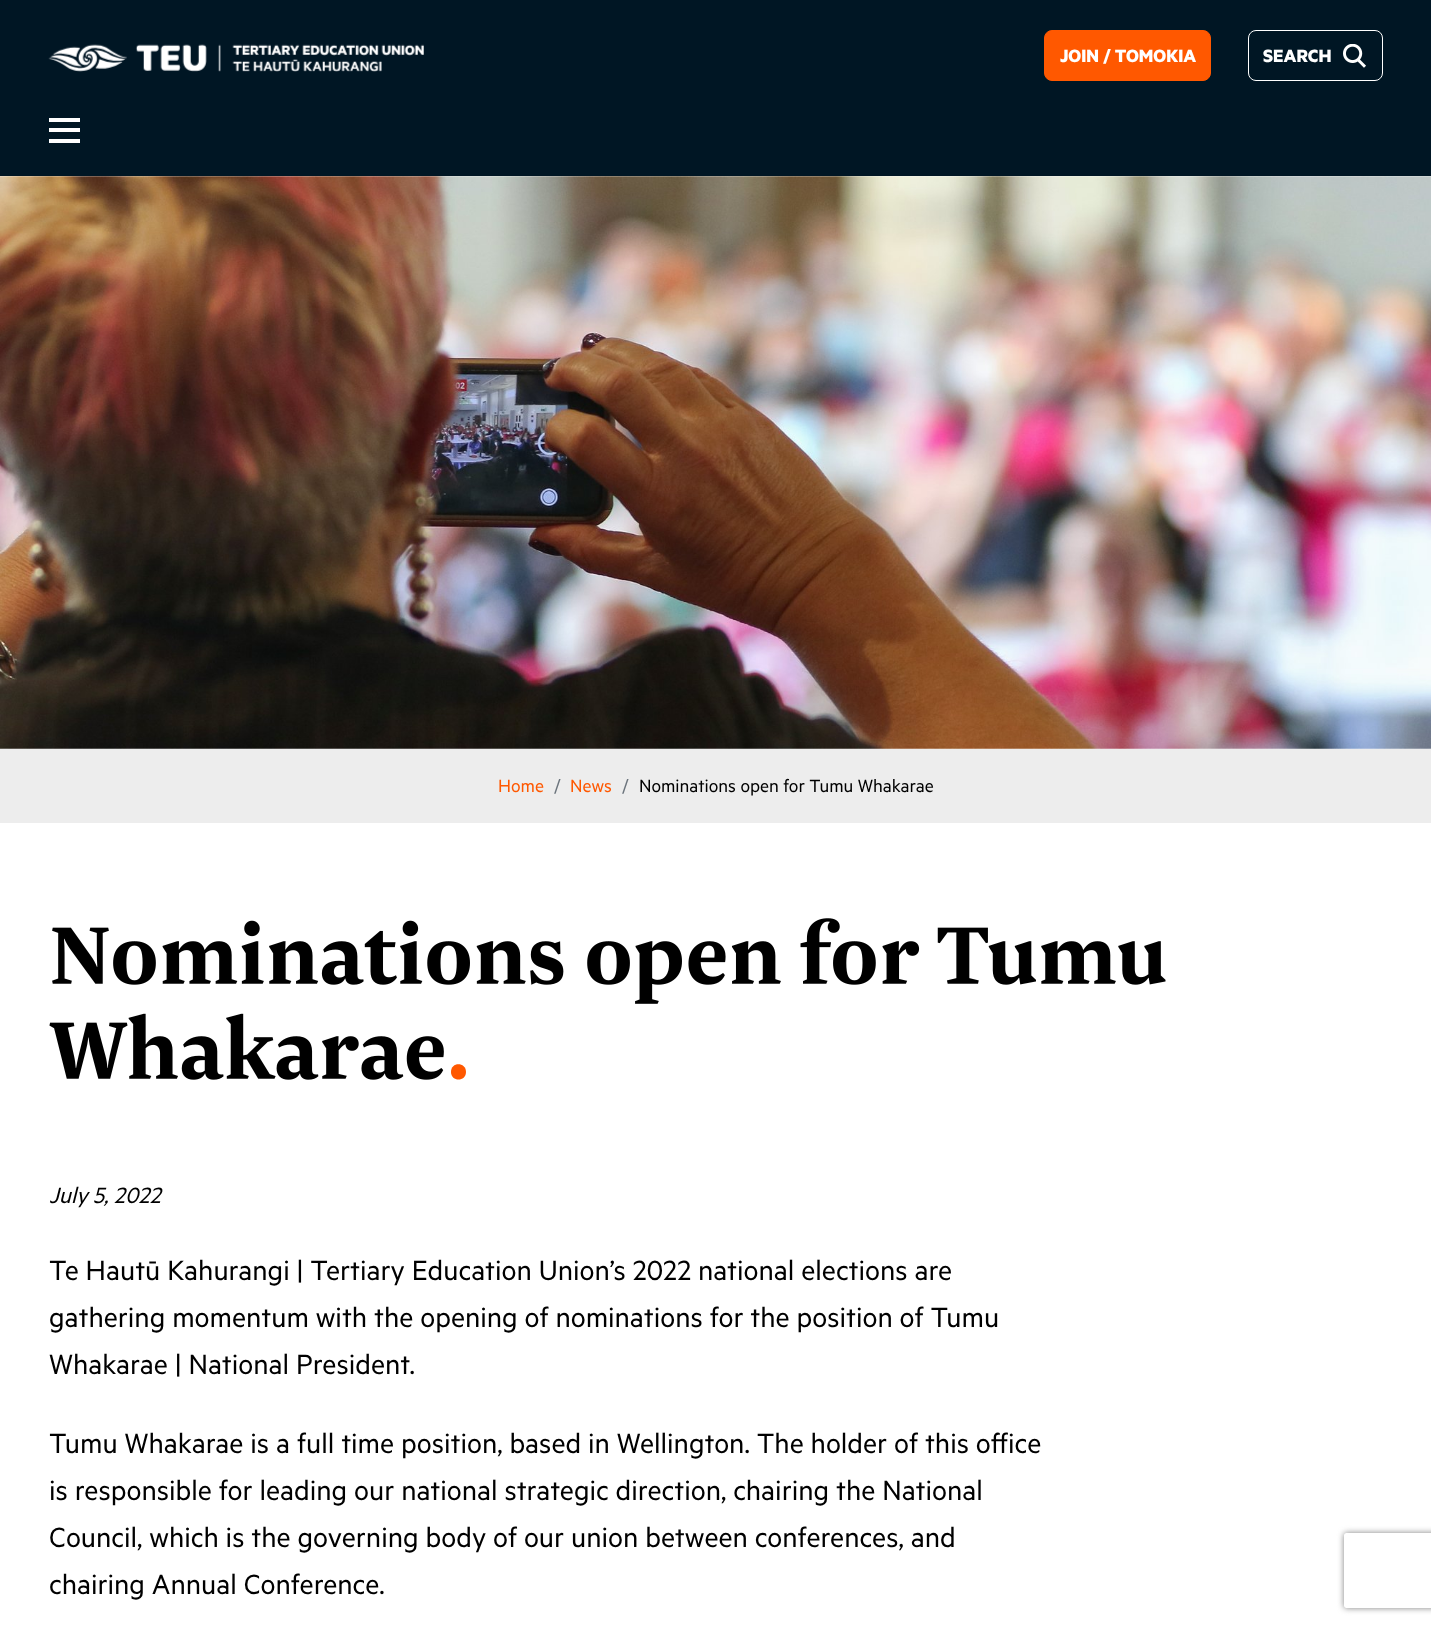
<svg xmlns="http://www.w3.org/2000/svg" width="1431" height="1625" viewBox="0 0 1431 1625">
  <defs>
    <clipPath id="clip1"><path d="M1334 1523H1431V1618H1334ZM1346.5 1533H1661.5C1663 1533 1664 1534 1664 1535.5V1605.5C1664 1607 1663 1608 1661.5 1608H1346.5C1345 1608 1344 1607 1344 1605.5V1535.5C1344 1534 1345 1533 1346.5 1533Z" clip-rule="evenodd"/></clipPath>
  </defs>
  <rect width="100%" height="100%" fill="rgb(255,255,255)"/>
  <rect x="0" y="0" width="1431" height="176" fill="rgb(0,22,36)"/>
  <image x="48" y="44" width="376" height="28" href="pic1.png"/>
  <rect x="1044.5" y="30.5" width="166" height="50" rx="7.5" fill="rgb(255,88,0)" stroke="rgb(255,88,0)"/>
  <text x="1060" y="62" font-family="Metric" font-size="20" font-weight="bold" fill="rgb(255,255,255)">JOIN / TOMOKIA</text>
  <rect x="1248.5" y="30.5" width="134" height="50" rx="7.5" fill="none" stroke="rgb(255,255,255)"/>
  <text x="1263" y="62" font-family="Metric" font-size="20" font-weight="bold" fill="rgb(255,255,255)">SEARCH</text>
  <image x="1343" y="44" width="23" height="24" href="pic2.png"/>
  <rect x="49" y="128" width="31" height="4" fill="rgb(255,255,255)"/>
  <rect x="49" y="118" width="31" height="4" fill="rgb(255,255,255)"/>
  <rect x="49" y="139" width="31" height="4" fill="rgb(255,255,255)"/>
  <image x="0" y="176" width="1431" height="573" href="pic3.png"/>
  <rect x="0" y="749" width="1431" height="74" fill="rgb(237,237,237)"/>
  <text x="498" y="792" font-family="Metric" font-size="20" fill="rgb(255,88,0)">Home</text>
  <text x="554" y="792" font-family="Metric" font-size="20" fill="rgb(108,117,125)">/</text>
  <text x="570" y="792" font-family="Metric" font-size="20" fill="rgb(255,88,0)">News</text>
  <text x="622" y="792" font-family="Metric" font-size="20" fill="rgb(108,117,125)">/</text>
  <text x="639" y="792" font-family="Metric" font-size="20" fill="rgb(0,0,0)">Nominations open for Tumu Whakarae</text>
  <image x="52" y="918" width="1114" height="86" href="pic4.png"/>
  <image x="49" y="1013" width="395" height="67" href="pic5.png"/>
  <path d="M466 1072C466 1082 451 1082 451 1072C451 1061.5 466 1062 466 1072Z" fill="rgb(255,88,0)"/>
  <text x="49" y="1203" font-family="Metric" font-size="25" font-style="italic" fill="rgb(0,0,0)">July 5, 2022</text>
  <g font-family="Metric" font-size="31.25" fill="rgb(0,0,0)">
    <text>
      <tspan x="49" y="1280">Te Hautū Kahurangi | Tertiary Education Union’s 2022 national elections are</tspan>
      <tspan x="49" y="1327">gathering momentum with the opening of nominations for the position of Tumu</tspan>
      <tspan x="49" y="1374">Whakarae | National President.</tspan>
    </text>
    <text>
      <tspan x="49" y="1453">Tumu Whakarae is a full time position, based in Wellington. The holder of this office</tspan>
      <tspan x="49" y="1500">is responsible for leading our national strategic direction, chairing the National</tspan>
      <tspan x="49" y="1547">Council, which is the governing body of our union between conferences, and</tspan>
      <tspan x="49" y="1594">chairing Annual Conference.</tspan>
    </text>
  </g>
  <g clip-path="url(#clip1)">
    <rect x="1344" y="1533" width="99" height="75" rx="2.5" fill="rgb(128,128,128)" filter="blur(3px)"/>
  </g>
</svg>
